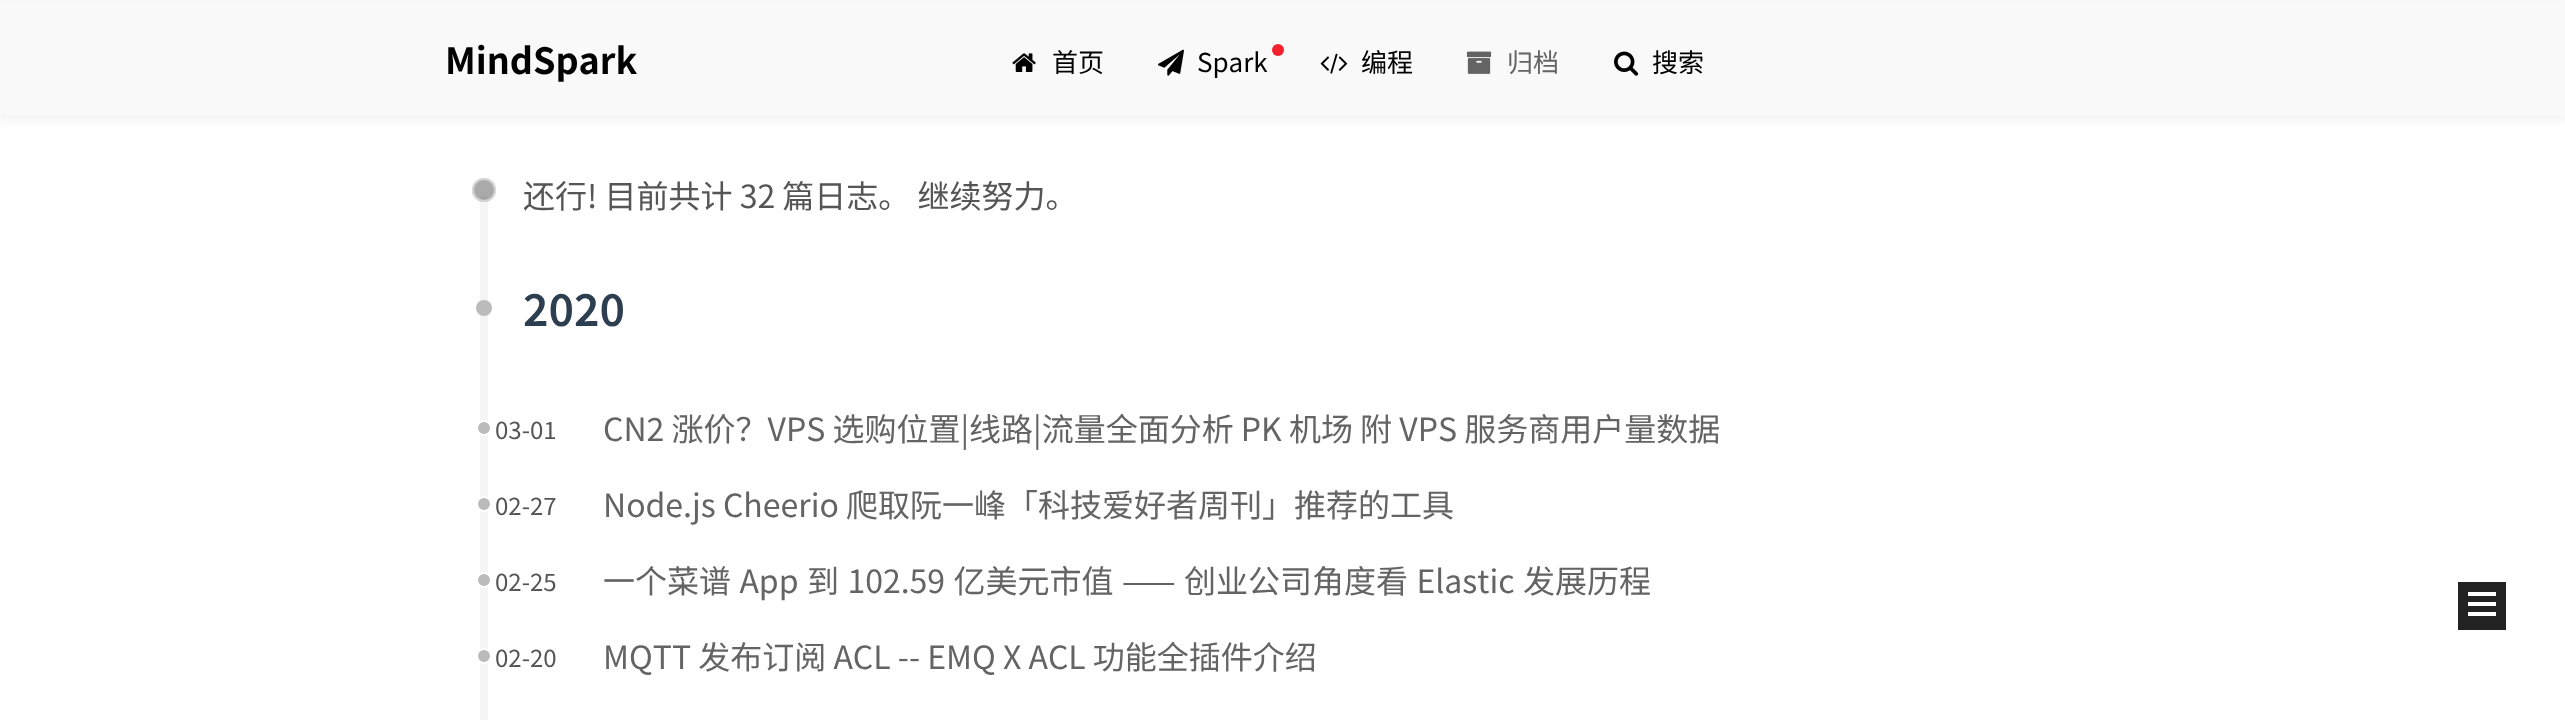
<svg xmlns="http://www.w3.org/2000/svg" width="2565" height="720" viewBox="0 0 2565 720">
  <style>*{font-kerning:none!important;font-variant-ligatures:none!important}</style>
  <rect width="100%" height="100%" fill="rgb(255,255,255)"/>
  <rect x="-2" y="0" width="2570" height="120" fill="rgba(0,0,0,0.05)" filter="blur(4px)"/>
  <rect x="0" y="2" width="2565" height="114" fill="rgb(249,249,249)"/>
  <text x="445" y="74" font-family="Noto Sans SC" font-size="36" font-weight="bold" fill="rgb(0,0,0)">MindSpark</text>
  <image x="1012" y="53" width="24" height="19" href="pic1.png"/>
  <text x="1052" y="72" font-family="Noto Sans SC" font-size="26" fill="rgb(0,0,0)">首页</text>
  <image x="1158" y="49" width="26" height="27" href="pic2.png"/>
  <text x="1197" y="72" font-family="Noto Sans SC" font-size="26" fill="rgb(0,0,0)">Spark</text>
  <circle cx="1278" cy="50" r="6" fill="rgb(245,34,45)"/>
  <image x="1320" y="53" width="28" height="21" href="pic3.png"/>
  <text x="1361" y="72" font-family="Noto Sans SC" font-size="26" fill="rgb(0,0,0)">编程</text>
  <image x="1466" y="51" width="26" height="23" href="pic4.png"/>
  <text x="1507" y="72" font-family="Noto Sans SC" font-size="26" fill="rgb(100,100,100)">归档</text>
  <image x="1614" y="51" width="25" height="25" href="pic5.png"/>
  <text x="1652" y="72" font-family="Noto Sans SC" font-size="26" fill="rgb(0,0,0)">搜索</text>
  <rect x="480" y="196" width="8" height="524" fill="rgb(245,245,245)"/>
  <circle cx="484" cy="190" r="12" fill="rgba(85,85,85,0.5)"/>
  <circle cx="484" cy="190" r="11" fill="none" stroke="rgba(255,255,255,0.5)" stroke-width="2"/>
  <text x="523" y="208" font-family="Noto Sans SC" font-size="32" fill="rgb(85,85,85)">还行! 目前共计 32 篇日志。 继续努力。</text>
  <circle cx="484" cy="308" r="8" fill="rgb(187,187,187)"/>
  <text x="523" y="326" font-family="Noto Sans SC" font-size="44" font-weight="600" fill="rgb(44,62,80)">2020</text>
  <circle cx="484" cy="428" r="7" fill="rgb(187,187,187)" stroke="rgb(255,255,255)" stroke-width="2"/>
  <text x="495" y="439" font-family="Noto Sans SC" font-size="24" fill="rgb(85,85,85)">03-01</text>
  <text x="603" y="441" font-family="Noto Sans SC" font-size="32" fill="rgb(100,100,100)">CN2 涨价？VPS 选购位置|线路|流量全面分析 PK 机场 附 VPS 服务商用户量数据</text>
  <circle cx="484" cy="504" r="7" fill="rgb(187,187,187)" stroke="rgb(255,255,255)" stroke-width="2"/>
  <text x="495" y="515" font-family="Noto Sans SC" font-size="24" fill="rgb(85,85,85)">02-27</text>
  <text x="603" y="517" font-family="Noto Sans SC" font-size="32" fill="rgb(100,100,100)">Node.js Cheerio 爬取阮一峰「科技爱好者周刊」推荐的工具</text>
  <circle cx="484" cy="580" r="7" fill="rgb(187,187,187)" stroke="rgb(255,255,255)" stroke-width="2"/>
  <text x="495" y="591" font-family="Noto Sans SC" font-size="24" fill="rgb(85,85,85)">02-25</text>
  <text x="603" y="593" word-spacing="1.25" font-family="Noto Sans SC" font-size="32" fill="rgb(100,100,100)">一个菜谱 App 到 102.59 亿美元市值 —— 创业公司角度看 Elastic 发展历程</text>
  <circle cx="484" cy="656" r="7" fill="rgb(187,187,187)" stroke="rgb(255,255,255)" stroke-width="2"/>
  <text x="495" y="667" font-family="Noto Sans SC" font-size="24" fill="rgb(85,85,85)">02-20</text>
  <text x="603" y="669" font-family="Noto Sans SC" font-size="32" fill="rgb(100,100,100)">MQTT 发布订阅 ACL -- EMQ X ACL 功能全插件介绍</text>
  <rect x="2458" y="582" width="48" height="48" fill="rgb(34,34,34)"/>
  <rect x="2468" y="592" width="28" height="4" fill="rgb(255,255,255)"/>
  <rect x="2468" y="602" width="28" height="4" fill="rgb(255,255,255)"/>
  <rect x="2468" y="612" width="28" height="4" fill="rgb(255,255,255)"/>
</svg>
